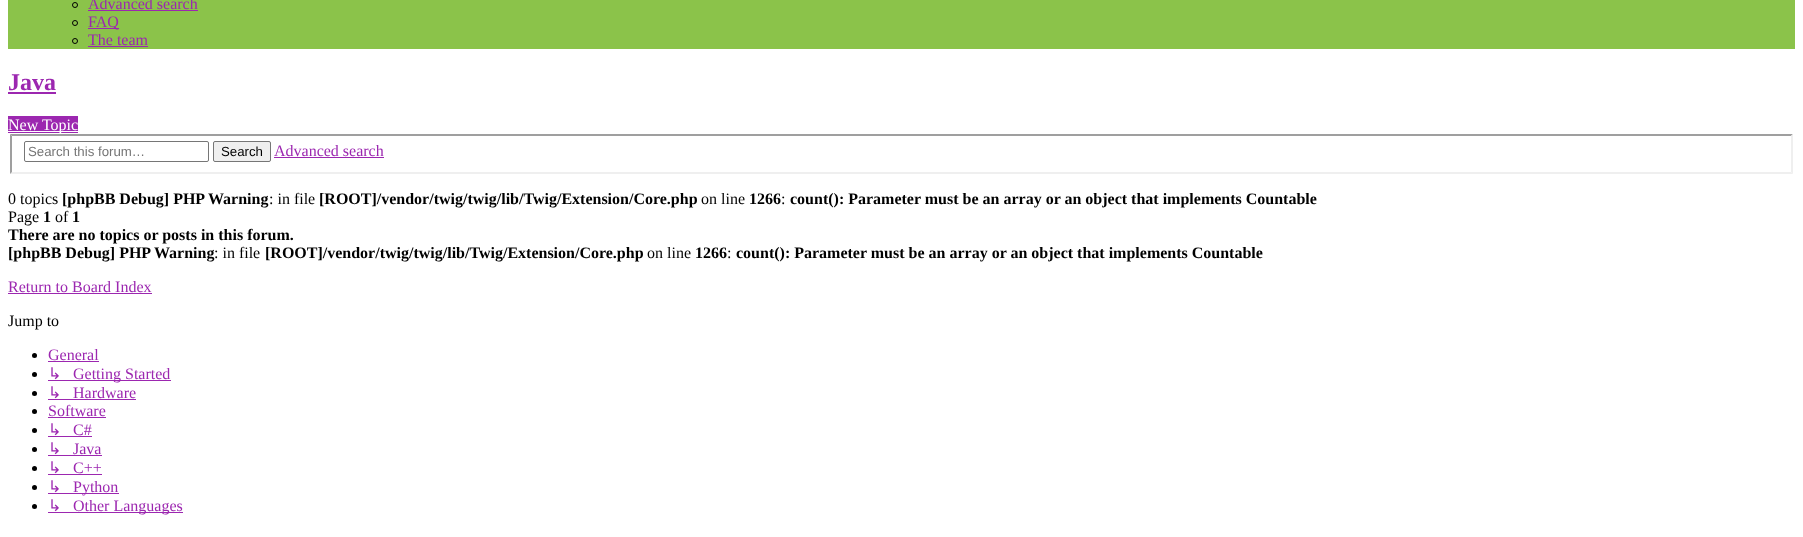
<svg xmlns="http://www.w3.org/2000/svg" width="1803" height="537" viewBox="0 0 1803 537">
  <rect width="100%" height="100%" fill="rgb(255,255,255)"/>
  <rect x="8" y="0" width="1787" height="49" fill="rgb(139,195,74)"/>
  <circle cx="75" cy="5" r="2.5" fill="none" stroke="rgb(0,0,0)"/>
  <text x="88" y="9" font-family="Liberation Serif" font-size="16" fill="rgb(156,39,176)">Advanced search</text>
  <rect x="88" y="10" width="110" height="1" fill="rgb(156,39,176)"/>
  <circle cx="75" cy="23" r="2.5" fill="none" stroke="rgb(0,0,0)"/>
  <rect x="88" y="28" width="31" height="1" fill="rgb(156,39,176)"/>
  <text x="88" y="27" font-family="Liberation Serif" font-size="16" fill="rgb(156,39,176)">FAQ</text>
  <circle cx="75" cy="41" r="2.5" fill="none" stroke="rgb(0,0,0)"/>
  <text x="88" y="45" font-family="Liberation Serif" font-size="16" fill="rgb(156,39,176)">The team</text>
  <rect x="88" y="46" width="60" height="1" fill="rgb(156,39,176)"/>
  <text x="8" y="90" font-family="Liberation Serif" font-size="24" font-weight="bold" fill="rgb(156,39,176)">Java</text>
  <rect x="8" y="92" width="48" height="2" fill="rgb(156,39,176)"/>
  <rect x="8" y="116" width="70" height="17" fill="rgb(156,39,176)"/>
  <rect x="8" y="131" width="70" height="1" fill="rgb(255,255,255)"/>
  <text x="8" y="130" font-family="Liberation Serif" font-size="16" fill="rgb(255,255,255)">New Topic</text>
  <path d="M10 134H1793L1791 136H12Z" fill="rgb(159,159,159)"/>
  <path d="M1793 134V174L1791 172V136Z" fill="rgb(239,239,239)"/>
  <path d="M1793 174H10L12 172H1791Z" fill="rgb(239,239,239)"/>
  <path d="M10 174V134L12 136V172Z" fill="rgb(159,159,159)"/>
  <rect x="24.5" y="141.5" width="184" height="20" rx="1.5" fill="none" stroke="rgb(118,118,118)"/>
  <text x="28" y="156" font-family="Liberation Sans" font-size="13.25" fill="rgb(117,117,117)">Search this forum…</text>
  <rect x="213.5" y="141.5" width="57" height="20" rx="1.5" fill="rgb(239,239,239)" stroke="rgb(118,118,118)"/>
  <text x="221" y="156" font-family="Liberation Sans" font-size="13.25" fill="rgb(0,0,0)">Search</text>
  <text x="274" y="156" font-family="Liberation Serif" font-size="16" fill="rgb(156,39,176)">Advanced search</text>
  <rect x="274" y="157" width="110" height="1" fill="rgb(156,39,176)"/>
  <text x="8" y="204" font-family="Liberation Serif" font-size="16" fill="rgb(0,0,0)">0 topics</text>
  <text x="62" y="204" font-family="Liberation Serif" font-size="16" font-weight="bold" fill="rgb(0,0,0)">[phpBB Debug] PHP Warning</text>
  <text x="269" y="204" font-family="Liberation Serif" font-size="16" fill="rgb(0,0,0)">: in file</text>
  <text x="319" y="204" font-family="Liberation Serif" font-size="16" font-weight="bold" fill="rgb(0,0,0)">[ROOT]/vendor/twig/twig/lib/Twig/Extension/Core.php</text>
  <text x="701" y="204" font-family="Liberation Serif" font-size="16" fill="rgb(0,0,0)">on line</text>
  <text x="749" y="204" font-family="Liberation Serif" font-size="16" font-weight="bold" fill="rgb(0,0,0)">1266</text>
  <text x="781" y="204" font-family="Liberation Serif" font-size="16" fill="rgb(0,0,0)">:</text>
  <text x="790" y="204" font-family="Liberation Serif" font-size="16" font-weight="bold" fill="rgb(0,0,0)">count(): Parameter must be an array or an object that implements Countable</text>
  <text x="8" y="222" font-family="Liberation Serif" font-size="16" fill="rgb(0,0,0)">Page</text>
  <text x="43" y="222" font-family="Liberation Serif" font-size="16" font-weight="bold" fill="rgb(0,0,0)">1</text>
  <text x="55" y="222" font-family="Liberation Serif" font-size="16" fill="rgb(0,0,0)">of</text>
  <g font-family="Liberation Serif" font-size="16" font-weight="bold" fill="rgb(0,0,0)">
    <text x="72" y="222">1</text>
    <text>
      <tspan x="8" y="240">There are no topics or posts in this forum.</tspan>
      <tspan x="8" y="258">[phpBB Debug] PHP Warning</tspan>
    </text>
  </g>
  <text x="214" y="258" font-family="Liberation Serif" font-size="16" fill="rgb(0,0,0)">: in file</text>
  <text x="265" y="258" font-family="Liberation Serif" font-size="16" font-weight="bold" fill="rgb(0,0,0)">[ROOT]/vendor/twig/twig/lib/Twig/Extension/Core.php</text>
  <text x="647" y="258" font-family="Liberation Serif" font-size="16" fill="rgb(0,0,0)">on line</text>
  <text x="695" y="258" font-family="Liberation Serif" font-size="16" font-weight="bold" fill="rgb(0,0,0)">1266</text>
  <text x="727" y="258" font-family="Liberation Serif" font-size="16" fill="rgb(0,0,0)">:</text>
  <text x="736" y="258" font-family="Liberation Serif" font-size="16" font-weight="bold" fill="rgb(0,0,0)">count(): Parameter must be an array or an object that implements Countable</text>
  <text x="8" y="292" font-family="Liberation Serif" font-size="16" fill="rgb(156,39,176)">Return to Board Index</text>
  <rect x="8" y="293" width="144" height="1" fill="rgb(156,39,176)"/>
  <text x="8" y="326" font-family="Liberation Serif" font-size="16" fill="rgb(0,0,0)">Jump to</text>
  <circle cx="34.5" cy="355.5" r="2.5" fill="rgb(0,0,0)"/>
  <text x="48" y="360" font-family="Liberation Serif" font-size="16" fill="rgb(156,39,176)">General</text>
  <rect x="48" y="361" width="51" height="1" fill="rgb(156,39,176)"/>
  <circle cx="34.5" cy="374.5" r="2.5" fill="rgb(0,0,0)"/>
  <text x="48" y="379" font-family="DejaVu Sans" font-size="16" fill="rgb(156,39,176)">↳</text>
  <rect x="48" y="380" width="123" height="1" fill="rgb(156,39,176)"/>
  <text x="73" y="379" font-family="Liberation Serif" font-size="16" fill="rgb(156,39,176)">Getting Started</text>
  <circle cx="34.5" cy="393.5" r="2.5" fill="rgb(0,0,0)"/>
  <text x="48" y="398" font-family="DejaVu Sans" font-size="16" fill="rgb(156,39,176)">↳</text>
  <rect x="48" y="399" width="88" height="1" fill="rgb(156,39,176)"/>
  <text x="73" y="398" font-family="Liberation Serif" font-size="16" fill="rgb(156,39,176)">Hardware</text>
  <circle cx="34.5" cy="411.5" r="2.5" fill="rgb(0,0,0)"/>
  <text x="48" y="416" font-family="Liberation Serif" font-size="16" fill="rgb(156,39,176)">Software</text>
  <rect x="48" y="417" width="58" height="1" fill="rgb(156,39,176)"/>
  <circle cx="34.5" cy="430.5" r="2.5" fill="rgb(0,0,0)"/>
  <text x="48" y="435" font-family="DejaVu Sans" font-size="16" fill="rgb(156,39,176)">↳</text>
  <text x="73" y="435" font-family="Liberation Serif" font-size="16" fill="rgb(156,39,176)">C#</text>
  <rect x="48" y="436" width="44" height="1" fill="rgb(156,39,176)"/>
  <circle cx="34.5" cy="449.5" r="2.5" fill="rgb(0,0,0)"/>
  <text x="48" y="454" font-family="DejaVu Sans" font-size="16" fill="rgb(156,39,176)">↳</text>
  <text x="73" y="454" font-family="Liberation Serif" font-size="16" fill="rgb(156,39,176)">Java</text>
  <rect x="48" y="455" width="54" height="1" fill="rgb(156,39,176)"/>
  <circle cx="34.5" cy="468.5" r="2.5" fill="rgb(0,0,0)"/>
  <text x="48" y="473" font-family="DejaVu Sans" font-size="16" fill="rgb(156,39,176)">↳</text>
  <text x="73" y="473" font-family="Liberation Serif" font-size="16" fill="rgb(156,39,176)">C++</text>
  <rect x="48" y="474" width="54" height="1" fill="rgb(156,39,176)"/>
  <circle cx="34.5" cy="487.5" r="2.5" fill="rgb(0,0,0)"/>
  <text x="48" y="492" font-family="DejaVu Sans" font-size="16" fill="rgb(156,39,176)">↳</text>
  <rect x="48" y="493" width="71" height="1" fill="rgb(156,39,176)"/>
  <text x="73" y="492" font-family="Liberation Serif" font-size="16" fill="rgb(156,39,176)">Python</text>
  <circle cx="34.5" cy="506.5" r="2.5" fill="rgb(0,0,0)"/>
  <text x="48" y="511" font-family="DejaVu Sans" font-size="16" fill="rgb(156,39,176)">↳</text>
  <rect x="48" y="512" width="135" height="1" fill="rgb(156,39,176)"/>
  <text x="73" y="511" font-family="Liberation Serif" font-size="16" fill="rgb(156,39,176)">Other Languages</text>
</svg>
